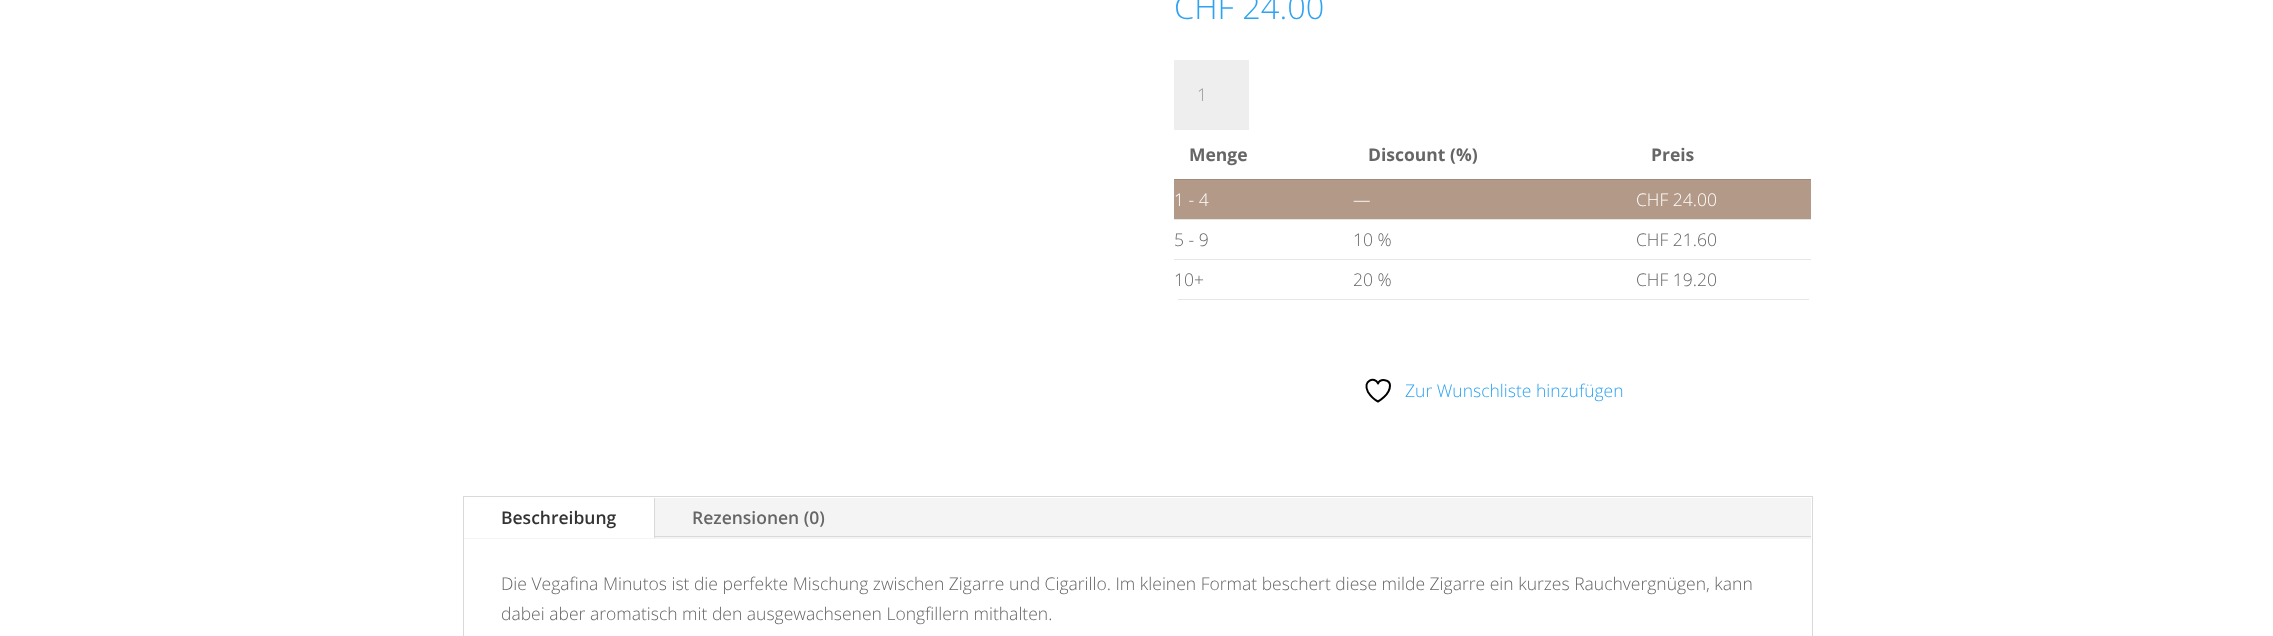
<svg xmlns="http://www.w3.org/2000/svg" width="2273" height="636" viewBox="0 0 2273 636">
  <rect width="100%" height="100%" fill="rgb(255,255,255)"/>
  <text x="1174" y="19" font-family="Open Sans" font-size="32.5" font-weight="300" fill="rgb(46,163,242)">CHF 24.00</text>
  <rect x="1174" y="60" width="75" height="70" fill="rgb(238,238,238)"/>
  <text x="1197" y="101" font-family="Open Sans" font-size="17.5" font-weight="300" fill="rgb(153,153,153)">1</text>
  <rect x="1178" y="299" width="631" height="1" fill="rgb(230,230,230)"/>
  <g font-family="Open Sans" font-size="17.5" font-weight="bold" fill="rgb(102,102,102)">
    <text x="1189" y="161">Menge</text>
    <text x="1368" y="161">Discount (%)</text>
    <text x="1651" y="161">Preis</text>
  </g>
  <rect x="1174" y="180" width="637" height="39" fill="rgb(179,153,136)"/>
  <rect x="1174" y="179" width="637" height="1" fill="rgb(161,138,122)"/>
  <g font-family="Open Sans" font-size="17.5" font-weight="300" fill="rgb(255,255,255)">
    <text x="1174" y="206">1 - 4</text>
    <text x="1353" y="206">—</text>
    <text x="1636" y="206">CHF 24.00</text>
  </g>
  <rect x="1174" y="219" width="637" height="1" fill="rgb(230,230,230)"/>
  <g font-family="Open Sans" font-size="17.5" font-weight="300" fill="rgb(102,102,102)">
    <text x="1174" y="246">5 - 9</text>
    <text x="1353" y="246">10 %</text>
    <text x="1636" y="246">CHF 21.60</text>
  </g>
  <rect x="1174" y="259" width="637" height="1" fill="rgb(230,230,230)"/>
  <g font-family="Open Sans" font-size="17.5" font-weight="300" fill="rgb(102,102,102)">
    <text x="1174" y="286">10+</text>
    <text x="1353" y="286">20 %</text>
    <text x="1636" y="286">CHF 19.20</text>
  </g>
  <path d="M1390 385.5C1390 379.5 1380.5 378 1378 383.5C1375 376 1362 380.5 1368 392C1370.5 396 1374 399.5 1378 401.5C1378 401.5 1390 395 1390 385.5Z" fill="none" stroke="rgb(0,0,0)" stroke-width="2" stroke-linecap="round" stroke-linejoin="round"/>
  <text x="1405" y="397" font-family="Open Sans" font-size="17.5" font-weight="300" fill="rgb(46,163,242)">Zur Wunschliste hinzufügen</text>
  <rect x="463.5" y="496.5" width="1349" height="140" fill="none" stroke="rgb(217,217,217)"/>
  <rect x="464" y="498" width="1347" height="41" fill="rgb(244,244,244)"/>
  <rect x="464" y="498" width="190" height="40" fill="rgb(255,255,255)"/>
  <rect x="654" y="498" width="1" height="40" fill="rgb(217,217,217)"/>
  <text x="501" y="524" font-family="Open Sans" font-size="17.5" font-weight="600" fill="rgb(51,51,51)">Beschreibung</text>
  <text x="692" y="524" font-family="Open Sans" font-size="17.5" font-weight="600" fill="rgb(102,102,102)">Rezensionen (0)</text>
  <rect x="655" y="536" width="1156" height="1" fill="rgb(217,217,217)"/>
  <g font-family="Open Sans" font-size="17.5" font-weight="300" fill="rgb(102,102,102)">
    <text>
      <tspan x="501" y="590">Die Vegafina Minutos ist die perfekte Mischung zwischen Zigarre und Cigarillo. Im kleinen Format beschert diese milde Zigarre ein kurzes Rauchvergnügen, kann</tspan>
      <tspan x="501" y="620">dabei aber aromatisch mit den ausgewachsenen Longfillern mithalten.</tspan>
    </text>
  </g>
</svg>
